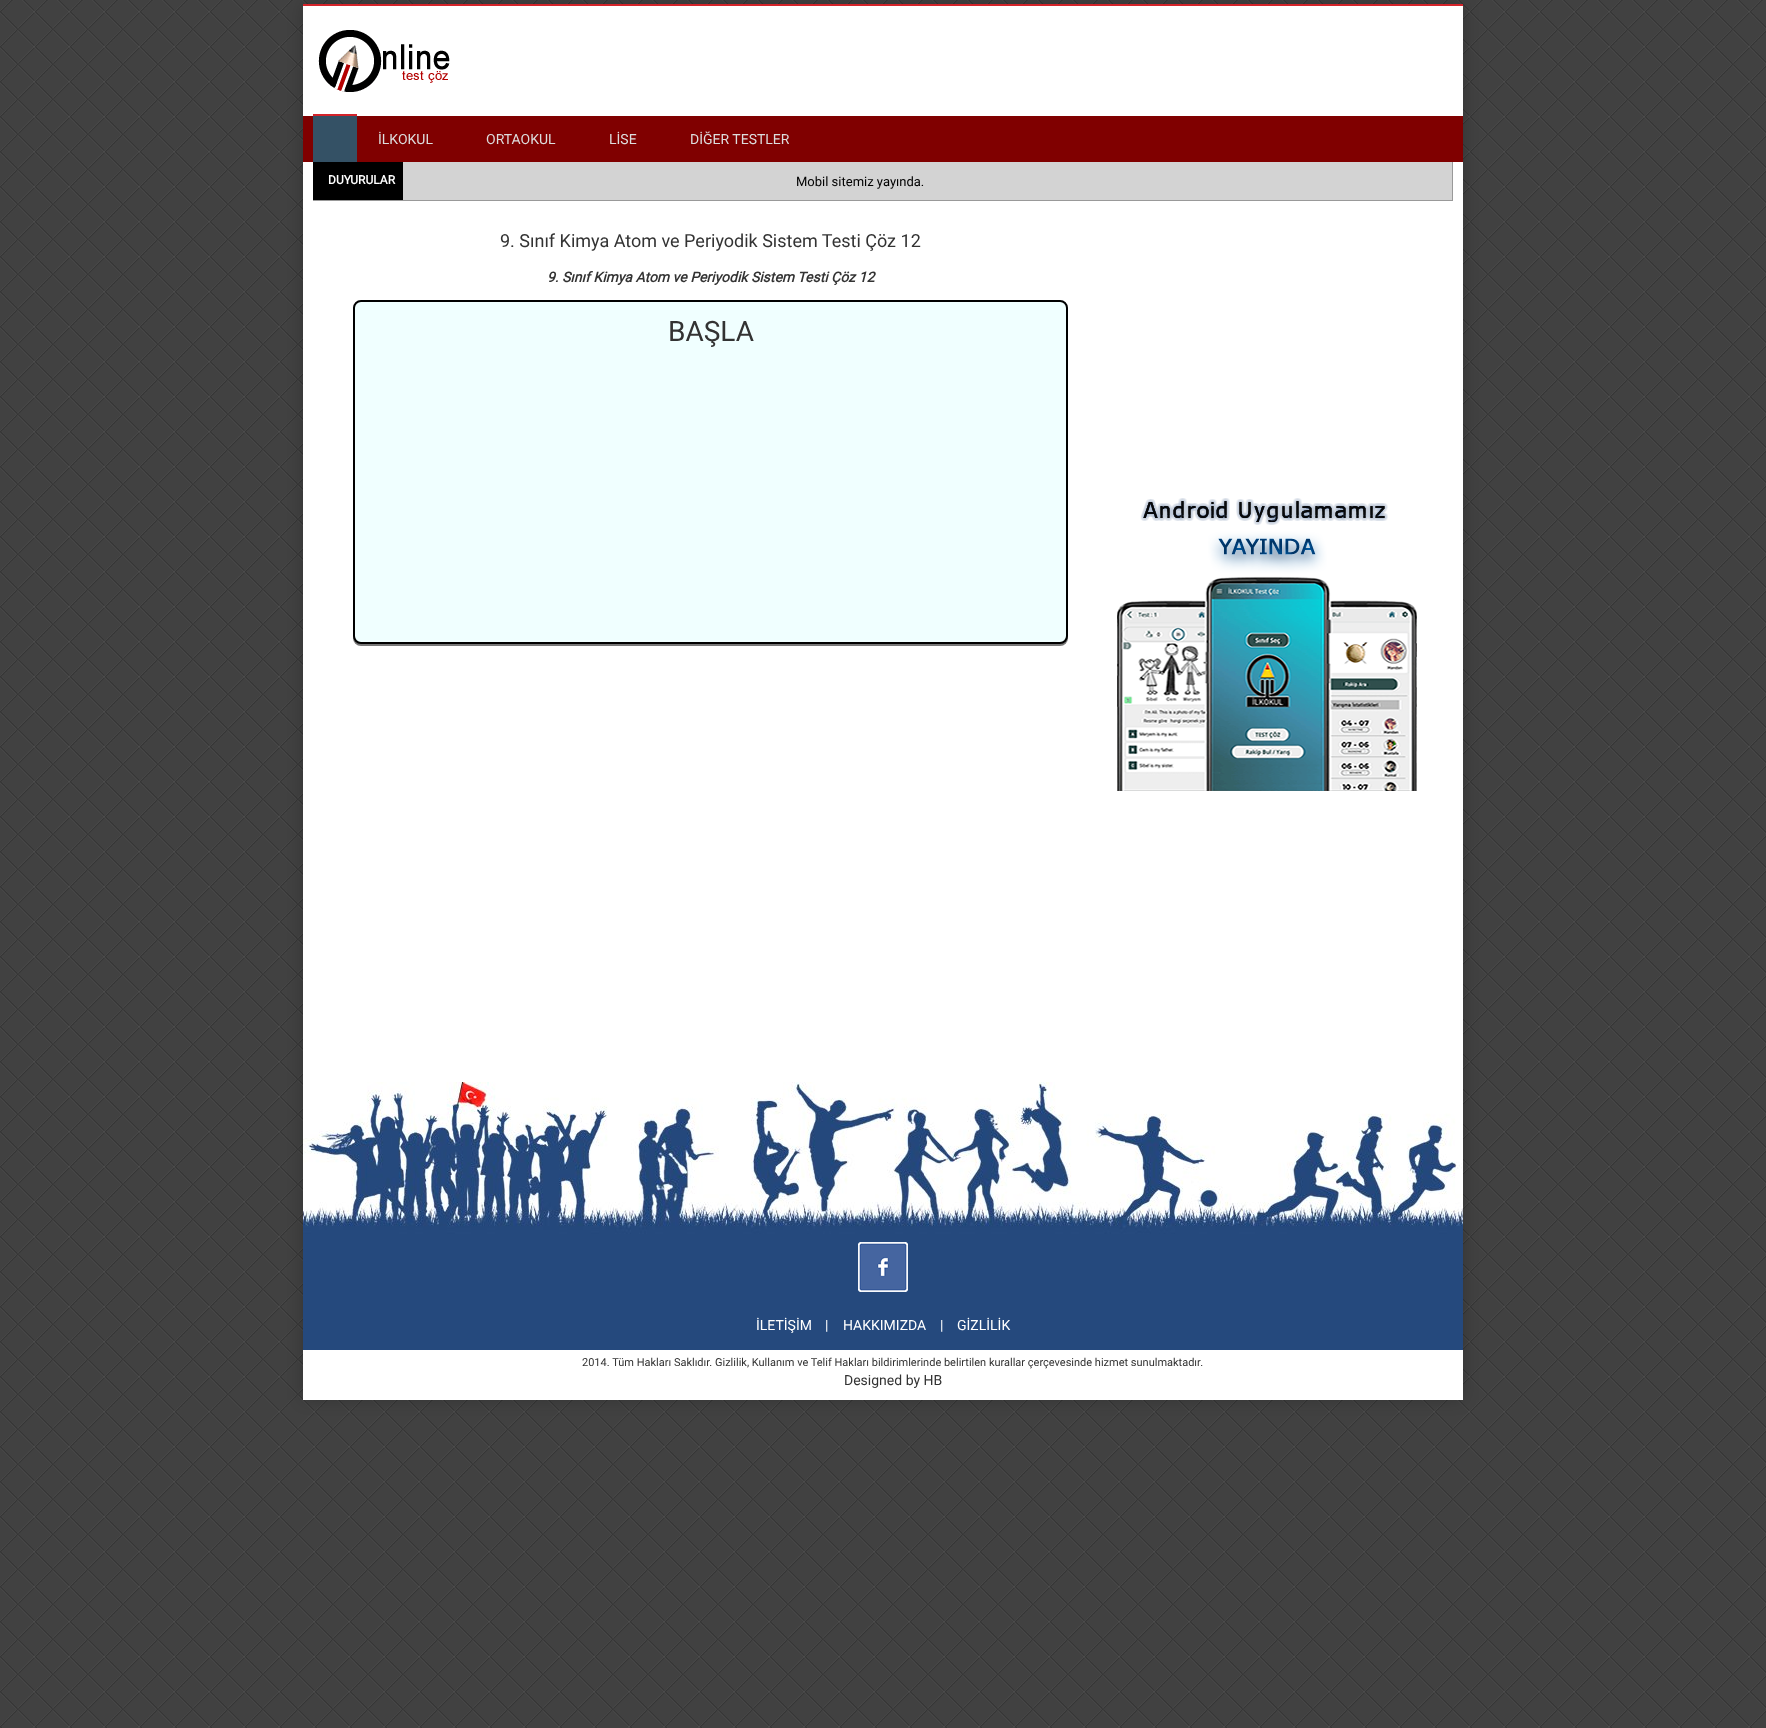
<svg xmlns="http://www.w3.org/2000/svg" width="1766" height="1728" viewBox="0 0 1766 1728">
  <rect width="100%" height="100%" fill="rgb(255,255,255)"/>
  <image x="0" y="0" width="1766" height="1728" href="pic1.png"/>
  <rect x="303" y="4" width="1160" height="1396" fill="rgba(0,0,0,0.2)" filter="blur(7.5px)"/>
  <rect x="303" y="6" width="1160" height="1394" fill="rgb(255,255,255)"/>
  <rect x="303" y="4" width="1160" height="2" fill="rgb(212,35,42)"/>
  <image x="318" y="30" width="132" height="62" href="pic2.png"/>
  <rect x="303" y="116" width="1160" height="46" fill="rgb(128,0,0)"/>
  <rect x="313" y="116" width="44" height="46" fill="rgb(52,81,101)"/>
  <rect x="313" y="114" width="44" height="2" fill="rgb(212,35,42)"/>
  <g font-family="Roboto" font-size="14" fill="rgb(221,221,221)">
    <text x="378" y="144">İLKOKUL</text>
    <text x="486" y="144">ORTAOKUL</text>
    <text x="609" y="144">LİSE</text>
    <text x="690" y="144">DİĞER TESTLER</text>
  </g>
  <rect x="403" y="162" width="1049" height="38" fill="rgb(211,211,211)"/>
  <rect x="1452" y="162" width="1" height="39" fill="rgb(153,153,153)"/>
  <rect x="313" y="200" width="1140" height="1" fill="rgb(153,153,153)"/>
  <rect x="313" y="162" width="90" height="38" fill="rgb(0,0,0)"/>
  <text x="328" y="184" font-family="Roboto" font-size="12" font-weight="bold" fill="rgb(255,255,255)">DUYURULAR</text>
  <text x="796" y="186" font-family="Roboto" font-size="13" fill="rgb(1,1,1)">Mobil sitemiz yayında.</text>
  <text x="500" y="247" font-family="Roboto" font-size="18" fill="rgb(51,51,51)">9. Sınıf Kimya Atom ve Periyodik Sistem Testi Çöz 12</text>
  <text x="547" y="282" font-family="Roboto" font-size="14" font-weight="bold" font-style="italic" fill="rgb(51,51,51)">9. Sınıf Kimya Atom ve Periyodik Sistem Testi Çöz 12</text>
  <rect x="353" y="302" width="715" height="344" rx="8" fill="rgb(119,119,119)" filter="blur(0.5px)"/>
  <rect x="354" y="301" width="713" height="342" rx="7" fill="rgb(240,255,255)" stroke="rgb(0,0,0)" stroke-width="2"/>
  <text x="668" y="341" font-family="Roboto" font-size="28" fill="rgb(51,51,51)">BAŞLA</text>
  <image x="1117" y="498" width="300" height="293" href="pic3.png"/>
  <image x="303" y="1082" width="1160" height="220" href="pic4.png"/>
  <image x="858" y="1242" width="50" height="50" href="pic5.png"/>
  <rect x="303" y="1302" width="1160" height="48" fill="rgb(37,73,125)"/>
  <g font-family="Roboto" font-size="14" fill="rgb(255,255,255)">
    <text x="756" y="1330">İLETİŞİM</text>
    <text x="825" y="1330">|</text>
    <text x="843" y="1330">HAKKIMIZDA</text>
    <text x="940" y="1330">|</text>
    <text x="957" y="1330">GİZLİLİK</text>
  </g>
  <text x="582" y="1366" font-family="Roboto" font-size="11" fill="rgb(51,51,51)">2014. Tüm Hakları Saklıdır. Gizlilik, Kullanım ve Telif Hakları bildirimlerinde belirtilen kurallar çerçevesinde hizmet sunulmaktadır.</text>
  <text x="844" y="1385" font-family="Roboto" font-size="14" fill="rgb(51,51,51)">Designed by HB</text>
</svg>
